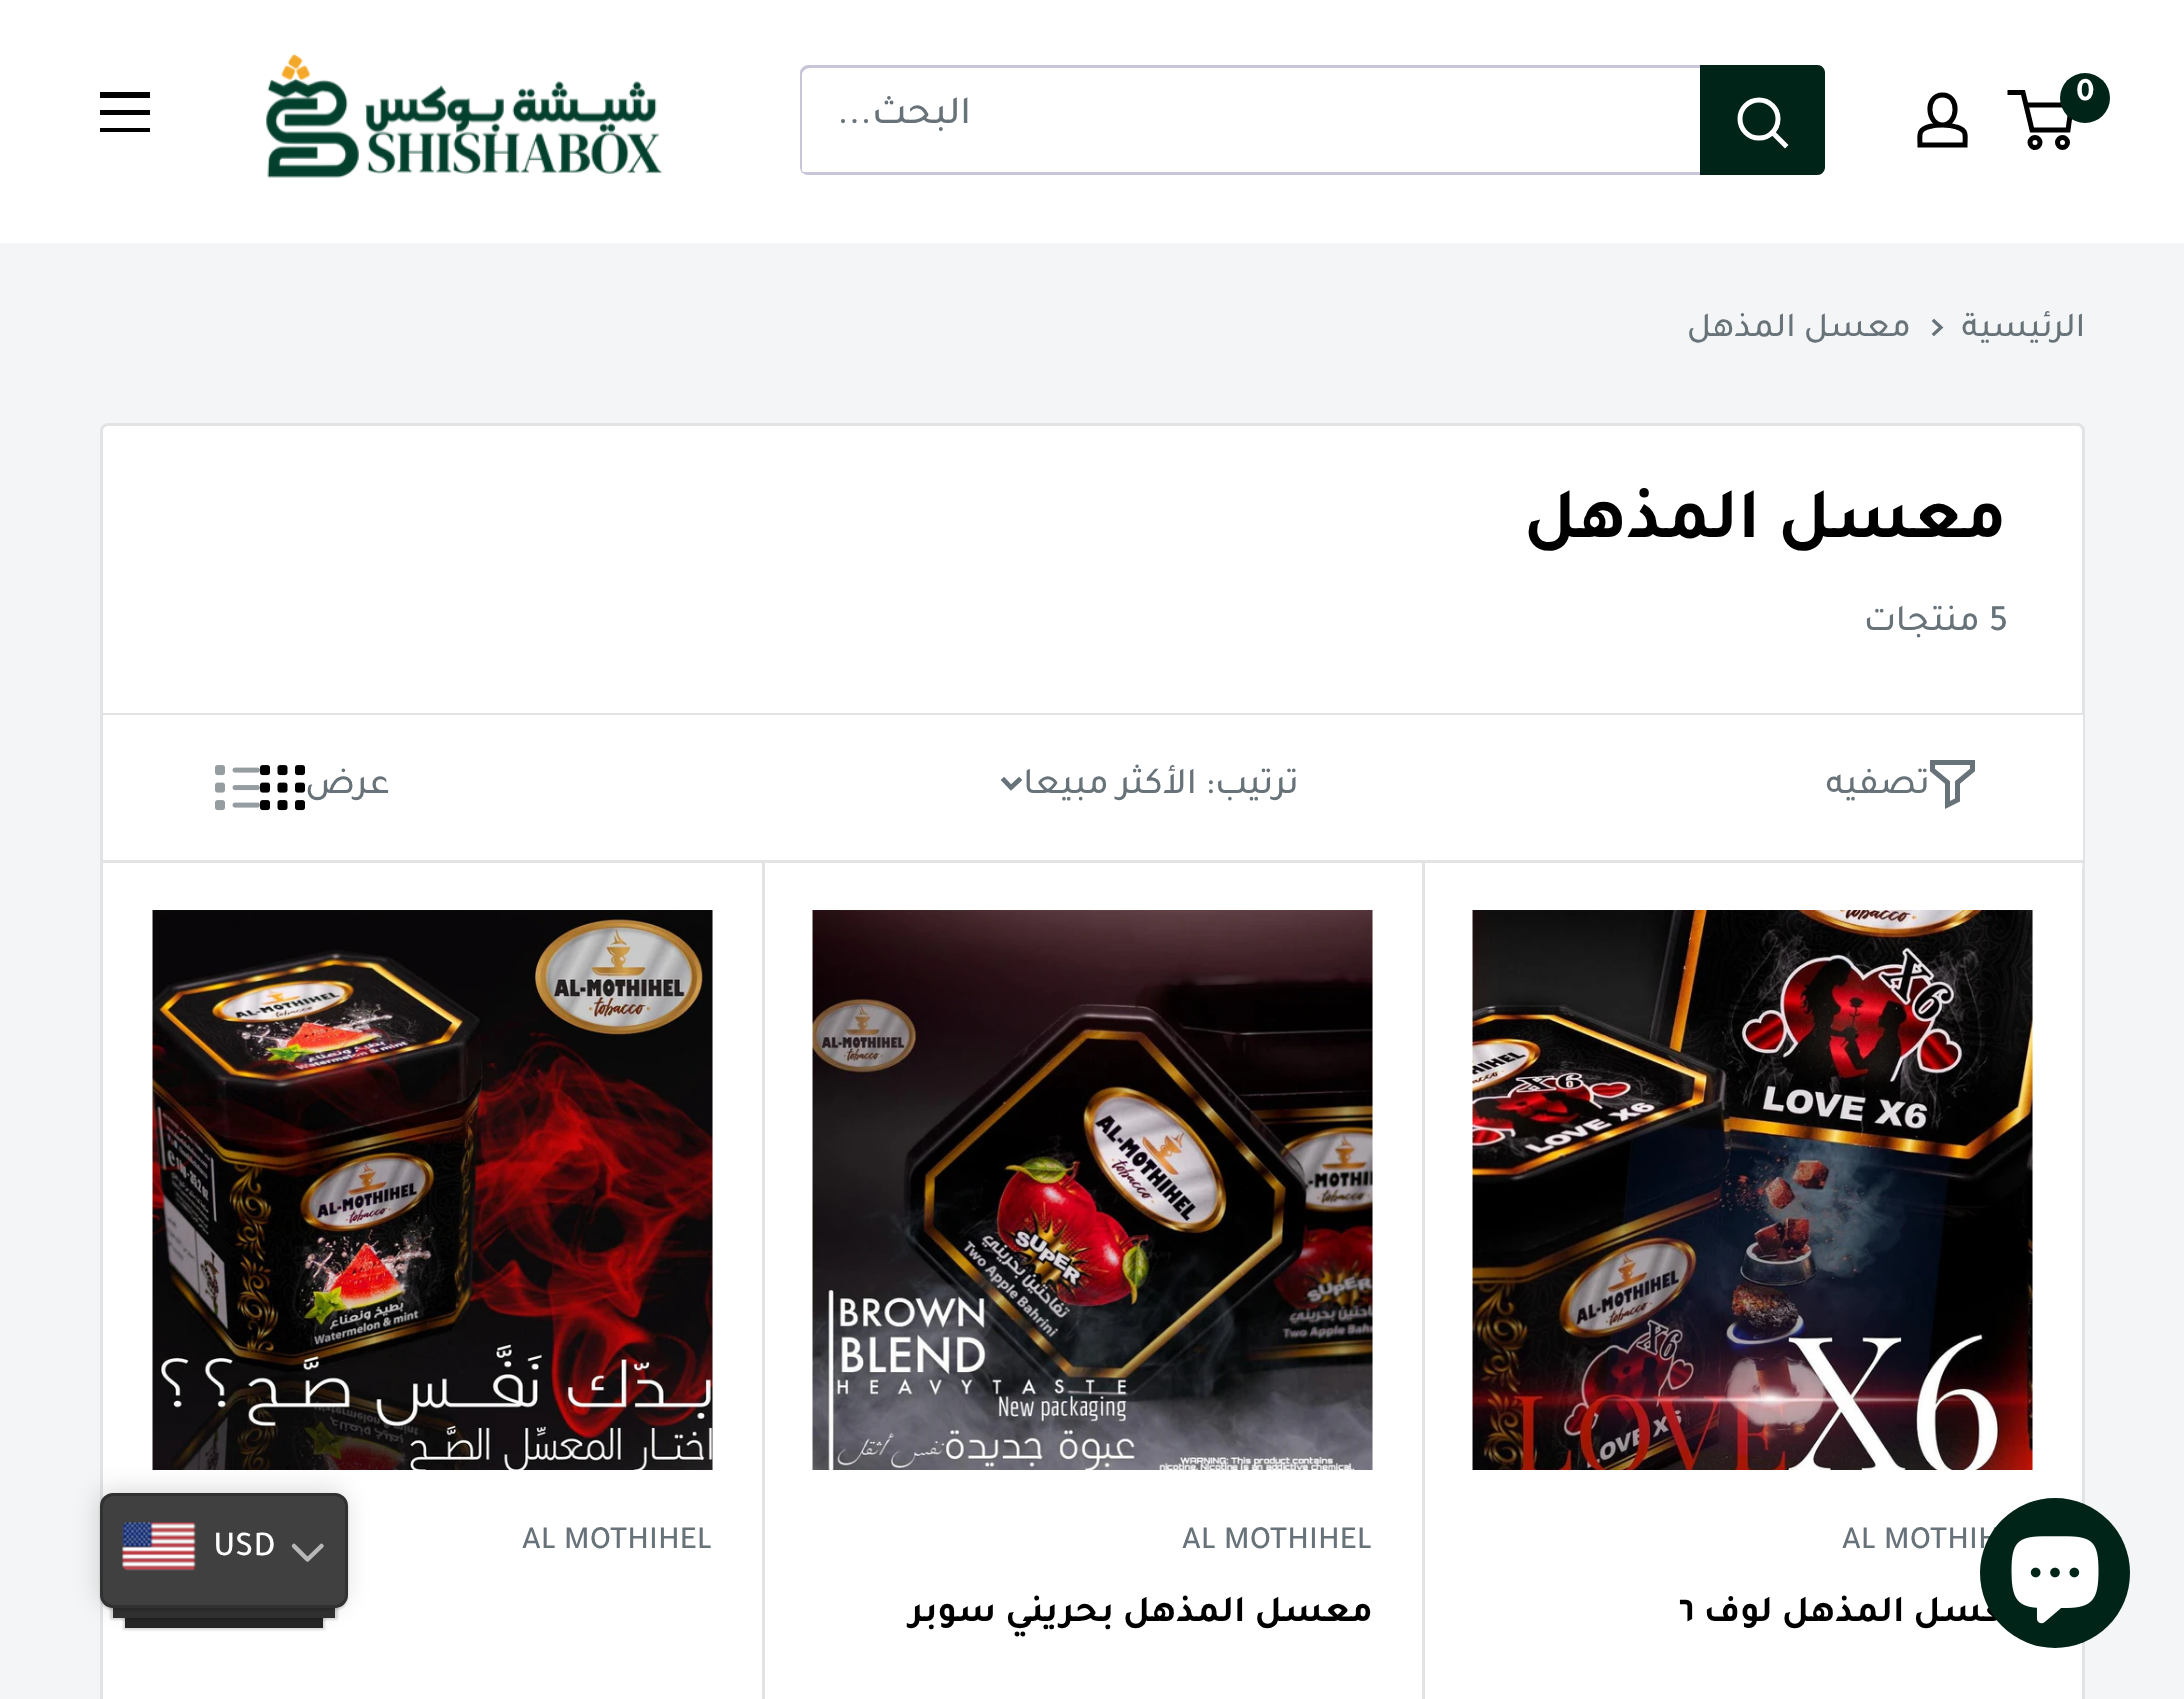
<svg xmlns="http://www.w3.org/2000/svg" width="2184" height="1699" viewBox="0 0 2184 1699">
  <rect width="100%" height="100%" fill="rgb(243,245,246)"/>
  <rect x="0" y="0" width="2184" height="243" fill="rgb(255,255,255)"/>
  <path d="M2026 105H2071.5L2068 130H2032L2023 92.5H2007.5" fill="none" stroke="rgb(0,0,0)" stroke-width="5"/>
  <circle cx="2085" cy="98" r="25" fill="rgb(0,36,24)"/>
  <text x="2076" y="100" font-family="Tajawal" font-size="33" font-weight="bold" fill="rgb(255,255,255)">0</text>
  <circle cx="2035" cy="142.5" r="5" fill="none" stroke="rgb(0,0,0)" stroke-width="5"/>
  <circle cx="2062.5" cy="142.5" r="5" fill="none" stroke="rgb(0,0,0)" stroke-width="5"/>
  <path d="M1942.5 125C1947 125 1952 125.5 1956.5 127C1967.5 130 1965 135.5 1965 145H1920C1920 135 1917.5 129.5 1929.5 126.5C1933.5 125.5 1938 125 1942.5 125ZM1942.5 125C1927 125 1924.5 95 1942.5 95C1960.5 95 1958 125 1942.5 125Z" fill="none" stroke="rgb(0,0,0)" stroke-width="5"/>
  <image x="266" y="53" width="397" height="125" href="pic1.png"/>
  <path d="M801 171C802 173 805 175 808 175H1817C1821 175 1825 171 1825 167V73C1825 70 1823 67 1821 66L1822 70V165C1822 169 1819 172 1815 172H805C803 172 802 172 801 171Z" fill="rgb(201,196,215)"/>
  <path d="M810 68H1820L1824 69C1823 67 1820 65 1817 65H808C804 65 800 69 800 73V167C800 169 801 172 803 173L802 170V75C802 71 806 68 810 68Z" fill="rgba(76,58,122,0.3)"/>
  <path d="M1700 65H1817C1821.5 65 1825 68.5 1825 73V167C1825 171.5 1821.5 175 1817 175H1700Z" fill="rgb(0,36,24)"/>
  <path d="M1785 145L1772.5 132.5" fill="none" stroke="rgb(255,255,255)" stroke-width="5" stroke-linecap="square"/>
  <circle cx="1759" cy="119" r="19" fill="none" stroke="rgb(255,255,255)" stroke-width="5"/>
  <text x="971" y="123" font-family="Tajawal" font-size="40" font-weight="500" direction="rtl" fill="rgb(103,114,121)">البحث...</text>
  <path d="M100 128H150V132H100ZM100 92H150V98H100ZM100 110H150V115H100Z" fill="rgb(0,0,0)" fill-rule="evenodd"/>
  <text x="2085" y="336" font-family="Tajawal" font-size="35" font-weight="500" direction="rtl" fill="rgb(103,114,121)">الرئيسية</text>
  <path d="M1934 321L1941 327.5L1934 334" fill="none" stroke="rgb(103,114,121)" stroke-width="3.3" stroke-linecap="square"/>
  <text x="1911" y="336" font-family="Tajawal" font-size="35" font-weight="500" direction="rtl" fill="rgb(103,114,121)">معسل المذهل</text>
  <rect x="101.5" y="424.5" width="1982" height="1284" rx="6.5" fill="rgb(255,255,255)" stroke="rgb(225,227,228)" stroke-width="3"/>
  <text x="2007" y="537" font-family="Tajawal" font-size="72.5" font-weight="bold" direction="rtl" fill="rgb(0,0,0)">معسل المذهل</text>
  <text x="1989" y="630" font-family="Tajawal" font-size="37.5" font-weight="500" fill="rgb(103,114,121)">5</text>
  <text x="1980" y="630" font-family="Tajawal" font-size="37.5" font-weight="500" direction="rtl" fill="rgb(103,114,121)">منتجات</text>
  <path d="M103 713V715H2082V858H2083V713Z" fill="rgb(225,227,228)"/>
  <rect x="103" y="860" width="1980" height="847" rx="8" fill="rgb(255,255,255)"/>
  <path d="M1423 860H2075C2079.5 860 2083 863.5 2083 868V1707H1423Z" fill="rgb(255,255,255)"/>
  <rect x="1422" y="860" width="3" height="839" fill="rgb(225,227,228)"/>
  <rect x="762" y="860" width="3" height="839" fill="rgb(225,227,228)"/>
  <path d="M103 860V863H2083V718H2082V860Z" fill="rgb(225,227,228)"/>
  <rect x="2082" y="715" width="1" height="145" fill="rgb(255,255,255)"/>
  <path d="M1972.5 770L1957.5 782.5V800L1947.5 805V782.5L1932.5 770V762.5H1972.5Z" fill="none" stroke="rgb(103,114,121)" stroke-width="5" stroke-linecap="square"/>
  <g font-family="Tajawal" font-size="37.5" font-weight="500" direction="rtl" fill="rgb(103,114,121)">
    <text x="1930" y="793">تصفيه</text>
    <text x="1299" y="793">ترتيب: الأكثر مبيعا</text>
  </g>
  <path d="M1019 780L1011 787.5L1004 780" fill="none" stroke="rgb(103,114,121)" stroke-width="4.7" stroke-linecap="square"/>
  <text x="390" y="793" font-family="Tajawal" font-size="37.5" font-weight="500" direction="rtl" fill="rgb(103,114,121)">عرض</text>
  <image x="260" y="765" width="45" height="46" href="pic2.png"/>
  <image x="215" y="765" width="45" height="46" href="pic3.png"/>
  <path d="M2082 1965H2083V868L2082 865Z" fill="rgb(225,227,228)"/>
  <image x="1472" y="910" width="561" height="560" href="pic4.png"/>
  <text x="1842" y="1548" font-family="Tajawal" font-size="32.5" font-weight="500" fill="rgb(103,114,121)">AL MOTHIH</text>
  <text x="2032" y="1621" font-family="Tajawal" font-size="37.5" font-weight="bold" direction="rtl" fill="rgb(0,0,0)">معسل المذهل لوف</text>
  <text x="1679" y="1621" font-family="Tajawal" font-size="37.5" font-weight="bold" fill="rgb(0,0,0)">٦</text>
  <image x="812" y="910" width="561" height="560" href="pic5.png"/>
  <text x="1182" y="1548" font-family="Tajawal" font-size="32.5" font-weight="500" fill="rgb(103,114,121)">AL MOTHIHEL</text>
  <text x="1373" y="1621" font-family="Tajawal" font-size="37.5" font-weight="bold" direction="rtl" fill="rgb(0,0,0)">معسل المذهل بحريني سوبر</text>
  <image x="152" y="910" width="561" height="560" href="pic6.png"/>
  <text x="522" y="1548" font-family="Tajawal" font-size="32.5" font-weight="500" fill="rgb(103,114,121)">AL MOTHIHEL</text>
  <circle cx="2055" cy="1573" r="75" fill="rgb(0,36,24)"/>
  <image x="2011" y="1536" width="88" height="88" href="pic7.png"/>
  <rect x="123" y="1560" width="202" height="70" fill="rgba(0,0,0,0.15)" filter="blur(1px)"/>
  <rect x="125" y="1618" width="198" height="10" fill="rgb(38,38,38)"/>
  <rect x="110" y="1525" width="228" height="95" rx="2.5" fill="rgba(0,0,0,0.15)" filter="blur(1px)"/>
  <rect x="113" y="1608" width="222" height="10" fill="rgb(49,49,49)"/>
  <rect x="100" y="1495" width="248" height="115" rx="13" fill="rgba(0,0,0,0.15)" filter="blur(1px)"/>
  <rect x="98" y="1490" width="247" height="115" rx="13" fill="rgba(0,0,0,0.15)" filter="blur(12.5px)"/>
  <rect x="101.5" y="1494.5" width="245" height="112" rx="11.5" fill="rgb(64,64,64)" stroke="rgb(49,49,49)" stroke-width="3"/>
  <path d="M294 1546L307.5 1559.5L321.5 1546" fill="none" stroke="rgb(183,183,183)" stroke-width="4.5" stroke-linecap="round" stroke-linejoin="round"/>
  <text x="213" y="1555" font-family="Tajawal" font-size="35" font-weight="500" fill="rgb(255,255,255)">USD</text>
  <image x="122" y="1522" width="74" height="49" href="pic8.png"/>
</svg>
